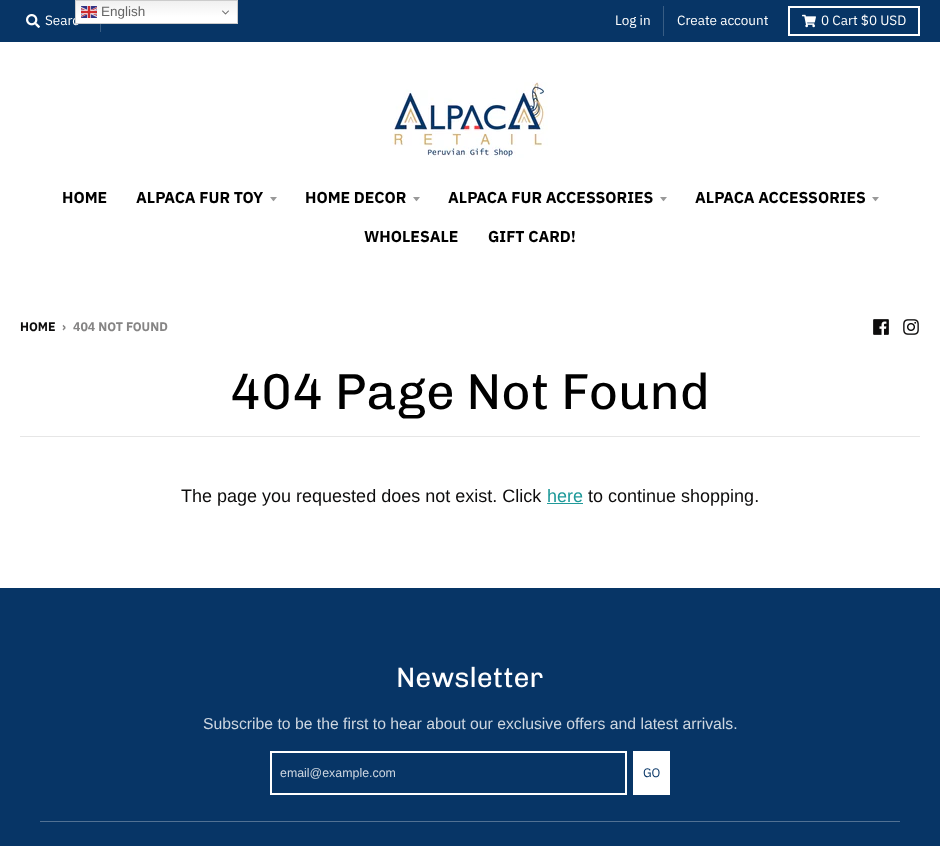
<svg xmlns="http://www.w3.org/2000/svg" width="940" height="846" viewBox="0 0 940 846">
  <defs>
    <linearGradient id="g1" gradientUnits="userSpaceOnUse" x1="157" y1="0" x2="157" y2="24"><stop offset="0" stop-color="rgb(239,239,239)"/><stop offset="0.7" stop-color="rgb(255,255,255)"/></linearGradient>
  </defs>
  <rect width="100%" height="100%" fill="rgb(255,255,255)"/>
  <rect x="0" y="0" width="940" height="42" fill="rgb(7,53,102)"/>
  <text x="45" y="25" font-family="IBM Plex Sans" font-size="13.5" fill="rgb(255,255,255)">Searc</text>
  <rect x="76" y="1" width="161" height="22" fill="url(#g1)"/>
  <rect x="75.5" y="0.5" width="162" height="23" fill="none" stroke="rgb(204,204,204)"/>
  <image x="81" y="6" width="16" height="12" href="pic1.png"/>
  <text x="101" y="16" font-family="Liberation Sans" font-size="13.5" fill="rgb(102,102,102)">English</text>
  <image x="222" y="10" width="7" height="5" href="pic2.png"/>
  <image x="26" y="14" width="14" height="14" href="pic3.png"/>
  <rect x="100" y="24" width="1" height="8" fill="rgb(56,93,132)"/>
  <rect x="663" y="6" width="1" height="30" fill="rgb(56,93,132)"/>
  <g font-family="IBM Plex Sans" font-size="13.5" fill="rgb(255,255,255)">
    <text x="615" y="25">Log in</text>
    <text x="677" y="25">Create account</text>
  </g>
  <rect x="789" y="7" width="130" height="28" fill="none" stroke="rgb(255,255,255)" stroke-width="2"/>
  <image x="802" y="14" width="14" height="14" href="pic4.png"/>
  <text x="821" y="25" font-family="IBM Plex Sans" font-size="13.5" fill="rgb(255,255,255)">0 Cart $0 USD</text>
  <image x="390" y="82" width="158" height="76" href="pic5.png"/>
  <g font-family="IBM Plex Sans" font-size="15.75" font-weight="bold" fill="rgb(0,0,0)">
    <text x="62" y="203">HOME</text>
    <text x="136" y="203">ALPACA FUR TOY</text>
  </g>
  <path d="M270 197C274.5 202.5 272.5 202.5 277 197Z" fill="rgb(153,153,153)"/>
  <text x="305" y="203" font-family="IBM Plex Sans" font-size="15.75" font-weight="bold" fill="rgb(0,0,0)">HOME DECOR</text>
  <path d="M413 197C417.5 202.5 415.5 202.5 420 197Z" fill="rgb(153,153,153)"/>
  <text x="448" y="203" font-family="IBM Plex Sans" font-size="15.75" font-weight="bold" fill="rgb(0,0,0)">ALPACA FUR ACCESSORIES</text>
  <path d="M660 197C664.5 202.5 662.5 202.5 667 197Z" fill="rgb(153,153,153)"/>
  <text x="695" y="203" font-family="IBM Plex Sans" font-size="15.75" font-weight="bold" fill="rgb(0,0,0)">ALPACA ACCESSORIES</text>
  <path d="M872 197C876.5 202.5 874.5 202.5 879 197Z" fill="rgb(153,153,153)"/>
  <g font-family="IBM Plex Sans" font-size="15.75" font-weight="bold" fill="rgb(0,0,0)">
    <text x="364" y="242">WHOLESALE</text>
    <text x="488" y="242">GIFT CARD!</text>
  </g>
  <text x="20" y="331" font-family="IBM Plex Sans" font-size="12.4" font-weight="bold" fill="rgb(13,12,12)">HOME</text>
  <g font-family="IBM Plex Sans" font-size="12.4" font-weight="bold" fill="rgb(134,133,133)">
    <text x="62" y="331">›</text>
    <text x="73" y="331">404 NOT FOUND</text>
  </g>
  <image x="873" y="319" width="16" height="16" href="pic6.png"/>
  <image x="903" y="319" width="16" height="16" href="pic7.png"/>
  <rect x="20" y="436" width="900" height="1" fill="rgb(230,230,230)"/>
  <text x="230" y="409" font-family="Chivo" font-size="50.6" fill="rgb(0,0,0)">404 Page Not Found</text>
  <text x="181" y="502" font-family="Arimo" font-size="18" fill="rgb(13,12,12)">The page you requested does not exist. Click</text>
  <text x="547" y="502" font-family="Arimo" font-size="18" fill="rgb(32,154,154)">here</text>
  <rect x="547" y="503" width="36" height="1" fill="rgb(32,154,154)"/>
  <text x="588" y="502" font-family="Arimo" font-size="18" fill="rgb(13,12,12)">to continue shopping.</text>
  <rect x="0" y="588" width="940" height="258" fill="rgb(7,53,102)"/>
  <text x="396" y="687" font-family="Chivo" font-size="28" fill="rgb(255,255,255)">Newsletter</text>
  <text x="203" y="729" font-family="Arimo" font-size="15.75" fill="rgb(205,214,224)">Subscribe to be the first to hear about our exclusive offers and latest arrivals.</text>
  <rect x="40" y="821" width="860" height="1" fill="rgb(81,113,147)"/>
  <rect x="271" y="752" width="355" height="42" fill="none" stroke="rgb(255,255,255)" stroke-width="2"/>
  <text x="280" y="777" font-family="Arimo" font-size="12.4" fill="rgb(205,214,224)">email@example.com</text>
  <rect x="633" y="751" width="37" height="44" fill="rgb(255,255,255)"/>
  <text x="643" y="777" font-family="IBM Plex Sans" font-size="12.4" fill="rgb(7,53,102)">GO</text>
</svg>
